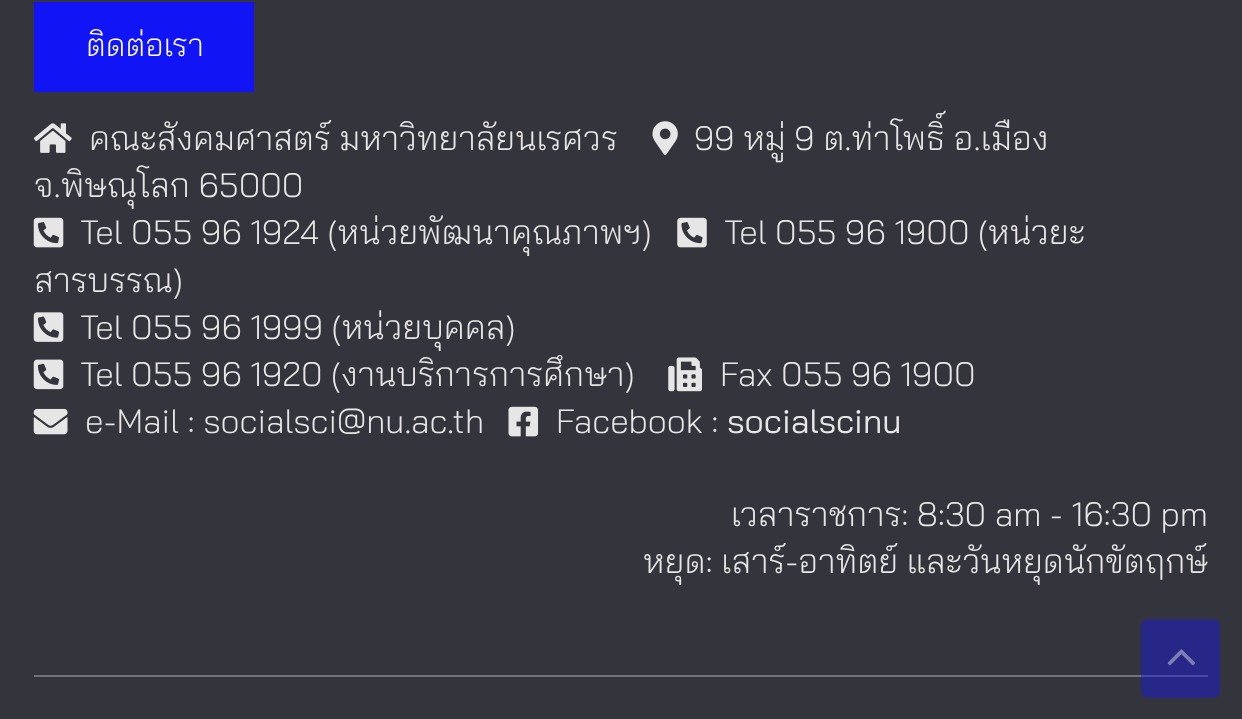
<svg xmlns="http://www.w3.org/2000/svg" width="1242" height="719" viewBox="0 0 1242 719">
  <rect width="100%" height="100%" fill="rgb(52,52,60)"/>
  <rect x="34" y="2" width="220" height="90" fill="rgb(17,21,245)"/>
  <text x="86" y="56" font-family="Bai Jamjuree" font-size="31.5" font-weight="300" fill="rgb(255,255,255)">ติดต่อเรา</text>
  <image x="33" y="123" width="39" height="30" href="pic1.png"/>
  <text x="89" y="150" font-family="Bai Jamjuree" font-size="33.75" font-weight="300" fill="rgb(230,230,230)">คณะสังคมศาสตร์ มหาวิทยาลัยนเรศวร</text>
  <image x="652" y="121" width="26" height="34" href="pic2.png"/>
  <g font-family="Bai Jamjuree" font-size="33.75" font-weight="300" fill="rgb(230,230,230)">
    <text x="694" y="150">99 หมู่ 9 ต.ท่าโพธิ์ อ.เมือง</text>
    <text x="34" y="197">จ.พิษณุโลก 65000</text>
  </g>
  <image x="33" y="217" width="31" height="31" href="pic3.png"/>
  <text x="80" y="244" font-family="Bai Jamjuree" font-size="33.75" font-weight="300" fill="rgb(230,230,230)">Tel 055 96 1924 (หน่วยพัฒนาคุณภาพฯ)</text>
  <image x="677" y="217" width="30" height="31" href="pic4.png"/>
  <g font-family="Bai Jamjuree" font-size="33.75" font-weight="300" fill="rgb(230,230,230)">
    <text x="724" y="244">Tel 055 96 1900 (หน่วยะ</text>
    <text x="34" y="292">สารบรรณ)</text>
  </g>
  <image x="33" y="312" width="31" height="30" href="pic5.png"/>
  <text x="80" y="339" font-family="Bai Jamjuree" font-size="33.75" font-weight="300" fill="rgb(230,230,230)">Tel 055 96 1999 (หน่วยบุคคล)</text>
  <image x="33" y="359" width="31" height="31" href="pic6.png"/>
  <text x="80" y="386" font-family="Bai Jamjuree" font-size="33.75" font-weight="300" fill="rgb(230,230,230)">Tel 055 96 1920 (งานบริการการศึกษา)</text>
  <image x="668" y="357" width="34" height="35" href="pic7.png"/>
  <text x="720" y="386" font-family="Bai Jamjuree" font-size="33.75" font-weight="300" fill="rgb(230,230,230)">Fax 055 96 1900</text>
  <image x="33" y="408" width="35" height="27" href="pic8.png"/>
  <text x="85" y="433" font-family="Bai Jamjuree" font-size="33.75" font-weight="300" fill="rgb(230,230,230)">e-Mail : socialsci@nu.ac.th</text>
  <image x="508" y="406" width="31" height="31" href="pic9.png"/>
  <text x="556" y="433" font-family="Bai Jamjuree" font-size="33.75" font-weight="300" fill="rgb(230,230,230)">Facebook :</text>
  <text x="727" y="433" font-family="Bai Jamjuree" font-size="33.75" fill="rgb(230,230,230)">socialscinu</text>
  <g font-family="Bai Jamjuree" font-size="33.75" font-weight="300" fill="rgb(230,230,230)">
    <text x="731" y="526">เวลาราชการ: 8:30 am - 16:30 pm</text>
    <text x="643" y="573">หยุด: เสาร์-อาทิตย์ และวันหยุดนักขัตฤกษ์</text>
  </g>
  <rect x="34" y="675" width="1174" height="2" fill="rgb(113,113,119)"/>
  <rect x="1141" y="619" width="79" height="79" rx="7" fill="rgba(17,21,245,0.4)"/>
  <image x="1167" y="649" width="28" height="17" href="pic10.png"/>
</svg>
